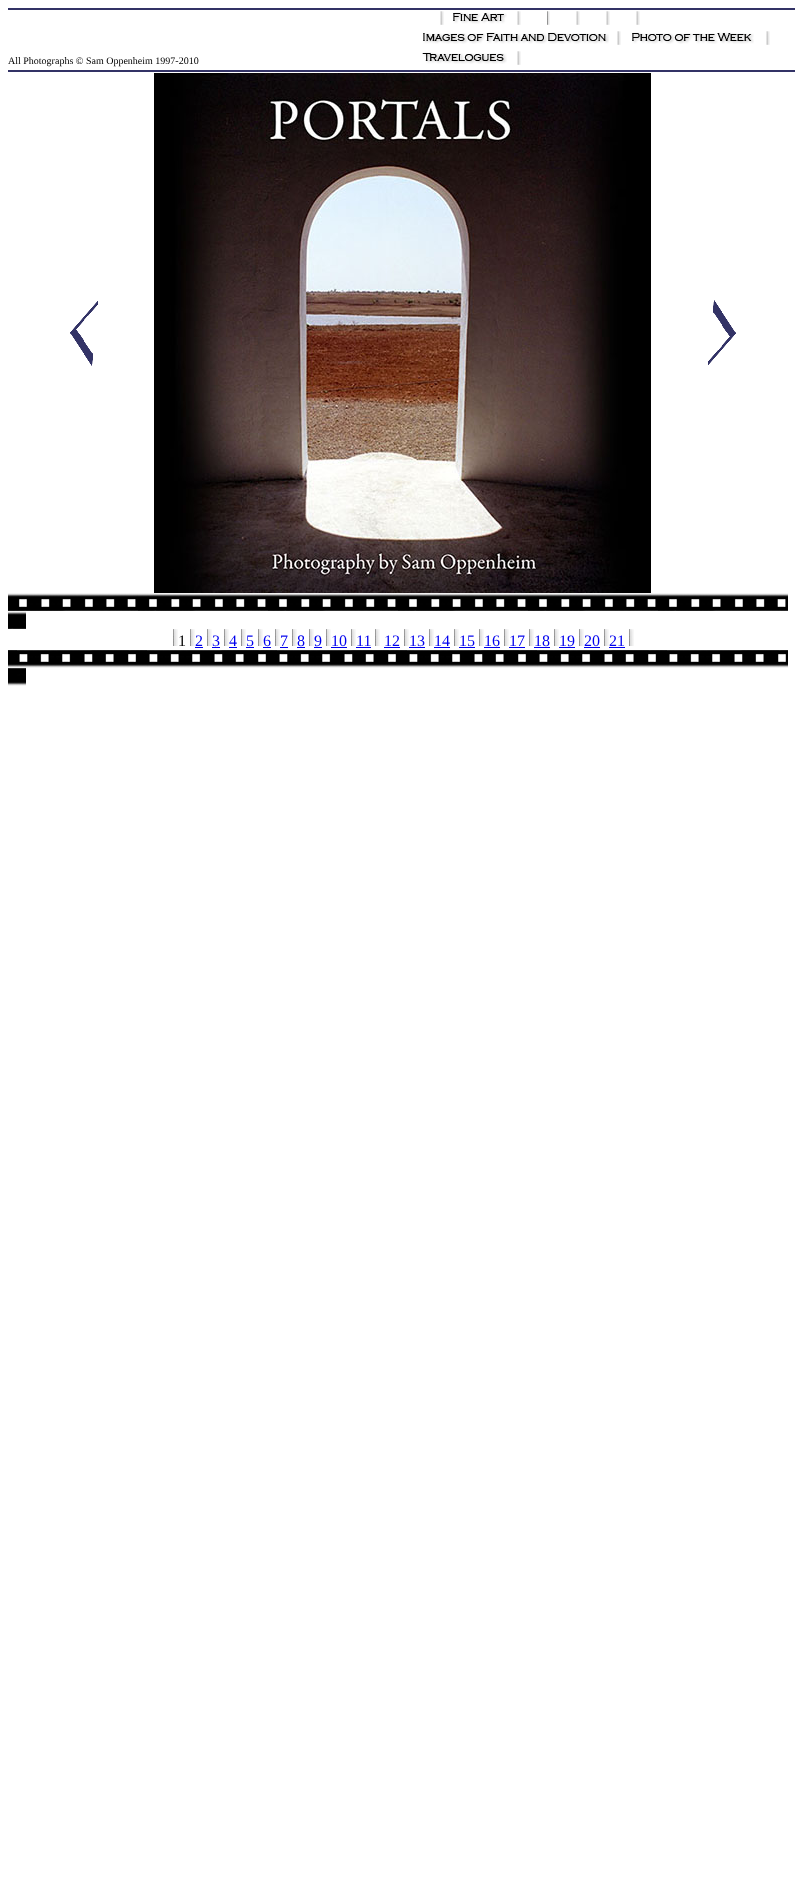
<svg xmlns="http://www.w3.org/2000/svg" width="803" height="1887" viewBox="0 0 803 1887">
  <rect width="100%" height="100%" fill="rgb(255,255,255)"/>
  <rect x="8" y="8" width="787" height="2" fill="rgb(51,51,102)"/>
  <text x="8" y="64" font-family="Liberation Serif" font-size="10" fill="rgb(0,0,0)">All Photographs © Sam Oppenheim 1997-2010</text>
  <image x="440" y="11" width="4" height="14" href="pic1.png"/>
  <image x="453" y="12" width="54" height="12" href="pic2.png"/>
  <image x="517" y="11" width="4" height="14" href="pic1.png"/>
  <image x="547" y="11" width="3" height="14" href="pic3.png"/>
  <image x="576" y="11" width="4" height="14" href="pic1.png"/>
  <image x="606" y="11" width="4" height="14" href="pic1.png"/>
  <image x="636" y="11" width="4" height="14" href="pic1.png"/>
  <image x="423" y="32" width="186" height="12" href="pic4.png"/>
  <image x="617" y="31" width="4" height="14" href="pic1.png"/>
  <image x="632" y="32" width="122" height="12" href="pic5.png"/>
  <image x="766" y="31" width="4" height="14" href="pic1.png"/>
  <image x="422" y="52" width="85" height="12" href="pic6.png"/>
  <image x="517" y="51" width="4" height="14" href="pic1.png"/>
  <rect x="8" y="70" width="787" height="2" fill="rgb(51,51,102)"/>
  <image x="70" y="301" width="28" height="65" href="pic7.png"/>
  <image x="154" y="73" width="497" height="520" href="pic8.png"/>
  <image x="708" y="300" width="28" height="65" href="pic9.png"/>
  <image x="8" y="593" width="130" height="18" href="pic10.png"/>
  <image x="138" y="593" width="130" height="18" href="pic10.png"/>
  <image x="268" y="593" width="130" height="18" href="pic10.png"/>
  <image x="398" y="593" width="130" height="18" href="pic10.png"/>
  <image x="528" y="593" width="130" height="18" href="pic10.png"/>
  <image x="658" y="593" width="130" height="18" href="pic10.png"/>
  <image x="8" y="611" width="18" height="18" href="pic11.png"/>
  <image x="173" y="629" width="5" height="17" href="pic12.png"/>
  <text x="178" y="646" font-family="Liberation Serif" font-size="16" fill="rgb(0,0,0)">1</text>
  <image x="190" y="629" width="5" height="17" href="pic12.png"/>
  <text x="195" y="646" font-family="Liberation Serif" font-size="16" fill="rgb(0,0,238)">2</text>
  <rect x="195" y="647" width="8" height="1" fill="rgb(0,0,238)"/>
  <image x="207" y="629" width="5" height="17" href="pic12.png"/>
  <text x="212" y="646" font-family="Liberation Serif" font-size="16" fill="rgb(0,0,238)">3</text>
  <rect x="212" y="647" width="8" height="1" fill="rgb(0,0,238)"/>
  <image x="224" y="629" width="5" height="17" href="pic12.png"/>
  <text x="229" y="646" font-family="Liberation Serif" font-size="16" fill="rgb(0,0,238)">4</text>
  <rect x="229" y="647" width="8" height="1" fill="rgb(0,0,238)"/>
  <image x="241" y="629" width="5" height="17" href="pic12.png"/>
  <text x="246" y="646" font-family="Liberation Serif" font-size="16" fill="rgb(0,0,238)">5</text>
  <rect x="246" y="647" width="8" height="1" fill="rgb(0,0,238)"/>
  <image x="258" y="629" width="5" height="17" href="pic12.png"/>
  <text x="263" y="646" font-family="Liberation Serif" font-size="16" fill="rgb(0,0,238)">6</text>
  <rect x="263" y="647" width="8" height="1" fill="rgb(0,0,238)"/>
  <image x="275" y="629" width="5" height="17" href="pic12.png"/>
  <text x="280" y="646" font-family="Liberation Serif" font-size="16" fill="rgb(0,0,238)">7</text>
  <rect x="280" y="647" width="8" height="1" fill="rgb(0,0,238)"/>
  <image x="292" y="629" width="5" height="17" href="pic12.png"/>
  <text x="297" y="646" font-family="Liberation Serif" font-size="16" fill="rgb(0,0,238)">8</text>
  <rect x="297" y="647" width="8" height="1" fill="rgb(0,0,238)"/>
  <image x="309" y="629" width="5" height="17" href="pic12.png"/>
  <text x="314" y="646" font-family="Liberation Serif" font-size="16" fill="rgb(0,0,238)">9</text>
  <rect x="314" y="647" width="8" height="1" fill="rgb(0,0,238)"/>
  <image x="326" y="629" width="5" height="17" href="pic12.png"/>
  <text x="331" y="646" font-family="Liberation Serif" font-size="16" fill="rgb(0,0,238)">10</text>
  <rect x="331" y="647" width="16" height="1" fill="rgb(0,0,238)"/>
  <image x="351" y="629" width="5" height="17" href="pic12.png"/>
  <text x="356" y="646" font-family="Liberation Serif" font-size="16" fill="rgb(0,0,238)">11</text>
  <rect x="356" y="647" width="15" height="1" fill="rgb(0,0,238)"/>
  <image x="375" y="629" width="5" height="17" href="pic12.png"/>
  <text x="384" y="646" font-family="Liberation Serif" font-size="16" fill="rgb(0,0,238)">12</text>
  <rect x="384" y="647" width="16" height="1" fill="rgb(0,0,238)"/>
  <image x="404" y="629" width="5" height="17" href="pic12.png"/>
  <text x="409" y="646" font-family="Liberation Serif" font-size="16" fill="rgb(0,0,238)">13</text>
  <rect x="409" y="647" width="16" height="1" fill="rgb(0,0,238)"/>
  <image x="429" y="629" width="5" height="17" href="pic12.png"/>
  <text x="434" y="646" font-family="Liberation Serif" font-size="16" fill="rgb(0,0,238)">14</text>
  <rect x="434" y="647" width="16" height="1" fill="rgb(0,0,238)"/>
  <image x="454" y="629" width="5" height="17" href="pic12.png"/>
  <text x="459" y="646" font-family="Liberation Serif" font-size="16" fill="rgb(0,0,238)">15</text>
  <rect x="459" y="647" width="16" height="1" fill="rgb(0,0,238)"/>
  <image x="479" y="629" width="5" height="17" href="pic12.png"/>
  <text x="484" y="646" font-family="Liberation Serif" font-size="16" fill="rgb(0,0,238)">16</text>
  <rect x="484" y="647" width="16" height="1" fill="rgb(0,0,238)"/>
  <image x="504" y="629" width="5" height="17" href="pic12.png"/>
  <text x="509" y="646" font-family="Liberation Serif" font-size="16" fill="rgb(0,0,238)">17</text>
  <rect x="509" y="647" width="16" height="1" fill="rgb(0,0,238)"/>
  <image x="529" y="629" width="5" height="17" href="pic12.png"/>
  <text x="534" y="646" font-family="Liberation Serif" font-size="16" fill="rgb(0,0,238)">18</text>
  <rect x="534" y="647" width="16" height="1" fill="rgb(0,0,238)"/>
  <image x="554" y="629" width="5" height="17" href="pic12.png"/>
  <text x="559" y="646" font-family="Liberation Serif" font-size="16" fill="rgb(0,0,238)">19</text>
  <rect x="559" y="647" width="16" height="1" fill="rgb(0,0,238)"/>
  <image x="579" y="629" width="5" height="17" href="pic12.png"/>
  <text x="584" y="646" font-family="Liberation Serif" font-size="16" fill="rgb(0,0,238)">20</text>
  <rect x="584" y="647" width="16" height="1" fill="rgb(0,0,238)"/>
  <image x="604" y="629" width="5" height="17" href="pic12.png"/>
  <text x="609" y="646" font-family="Liberation Serif" font-size="16" fill="rgb(0,0,238)">21</text>
  <rect x="609" y="647" width="16" height="1" fill="rgb(0,0,238)"/>
  <image x="629" y="629" width="5" height="17" href="pic12.png"/>
  <image x="8" y="650" width="130" height="18" href="pic13.png"/>
  <image x="138" y="650" width="130" height="18" href="pic13.png"/>
  <image x="268" y="650" width="130" height="18" href="pic13.png"/>
  <image x="398" y="650" width="130" height="18" href="pic13.png"/>
  <image x="528" y="650" width="130" height="18" href="pic13.png"/>
  <image x="658" y="650" width="130" height="18" href="pic13.png"/>
  <image x="8" y="668" width="18" height="18" href="pic14.png"/>
</svg>
